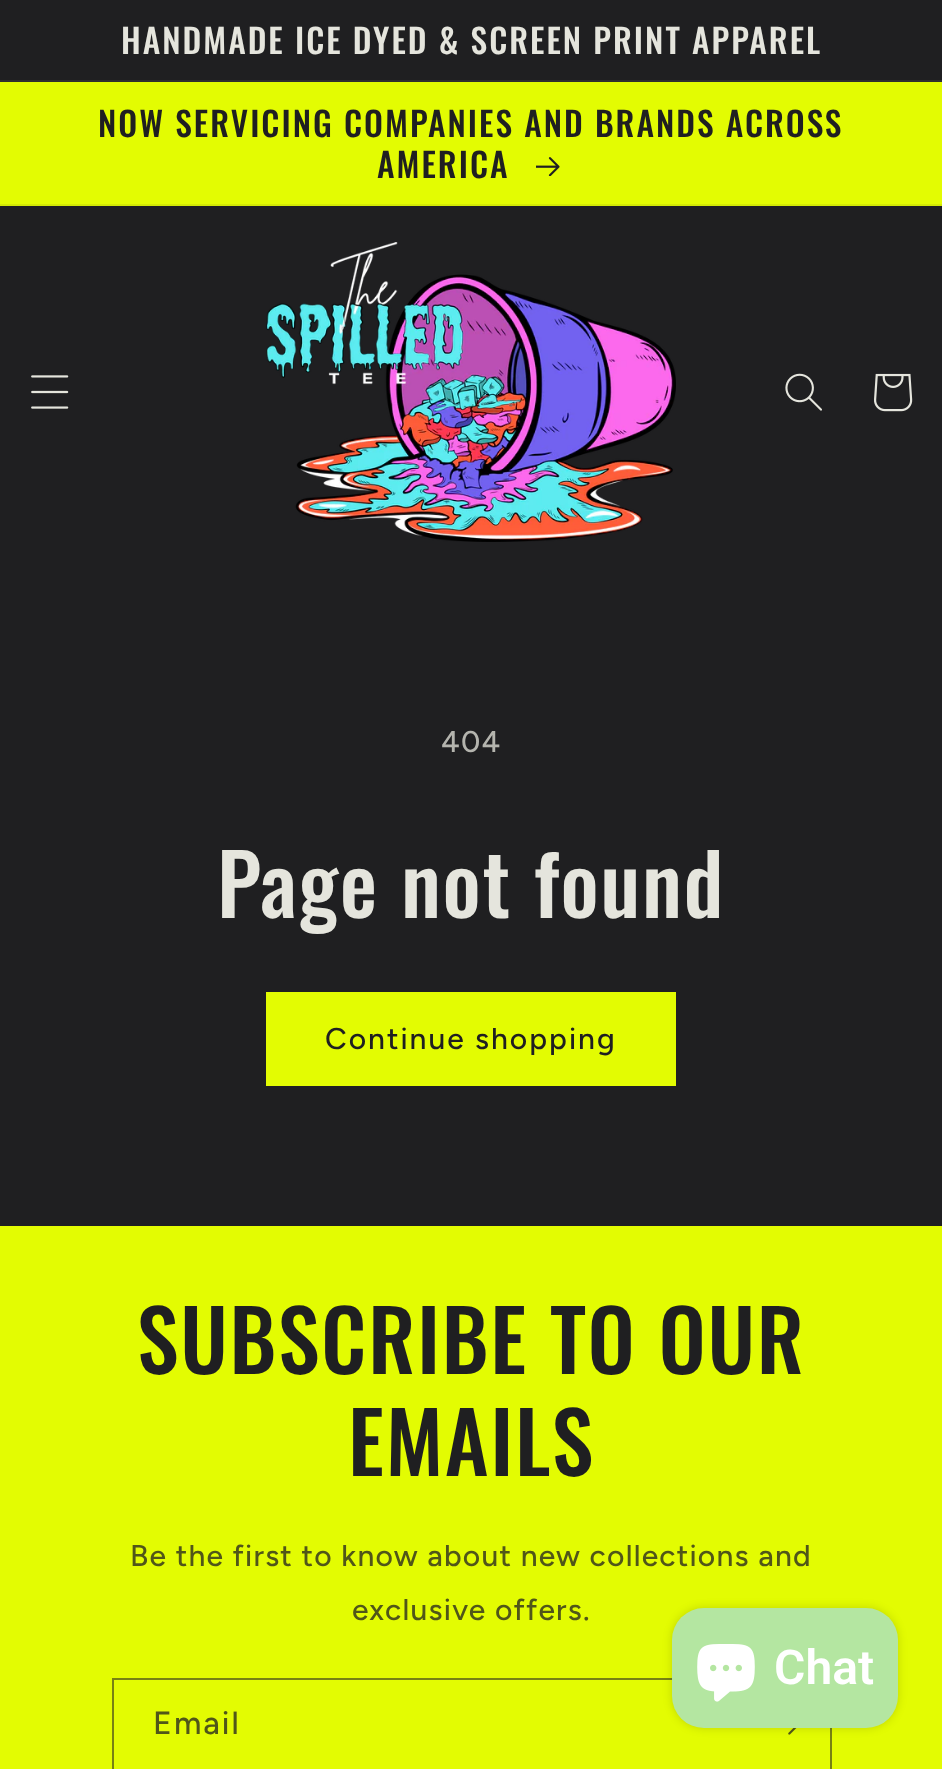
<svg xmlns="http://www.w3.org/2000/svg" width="942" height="1769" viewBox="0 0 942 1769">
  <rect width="100%" height="100%" fill="rgb(31,31,33)"/>
  <rect x="0" y="80" width="942" height="2" fill="rgb(47,47,48)"/>
  <text x="121" y="54" font-family="Oswald" font-size="33.6" font-weight="500" letter-spacing="2" fill="rgb(229,229,221)">HANDMADE ICE DYED &amp; SCREEN PRINT APPAREL</text>
  <rect x="0" y="82" width="942" height="122" fill="rgb(227,252,2)"/>
  <rect x="0" y="204" width="942" height="2" fill="rgb(211,234,4)"/>
  <g font-family="Oswald" font-size="33.6" font-weight="500" letter-spacing="2" fill="rgb(31,31,33)">
    <text x="98" y="137">NOW SERVICING COMPANIES AND BRANDS ACROSS</text>
    <text x="377" y="178">AMERICA</text>
  </g>
  <image x="536" y="157" width="24" height="19" href="pic1.png"/>
  <image x="31" y="375" width="38" height="34" href="pic2.png"/>
  <image x="266" y="242" width="410" height="300" href="pic3.png"/>
  <image x="785" y="373" width="37" height="38" href="pic4.png"/>
  <image x="874" y="373" width="39" height="39" href="pic5.png"/>
  <text x="441" y="752" font-family="Figtree" font-size="30" font-weight="500" letter-spacing="1.2" fill="rgb(180,180,174)">404</text>
  <text x="217" y="918" font-family="Oswald" font-size="84" font-weight="500" letter-spacing="1.7" fill="rgb(229,229,221)">Page not found</text>
  <rect x="266" y="992" width="410" height="94" fill="rgb(227,252,2)"/>
  <text x="325" y="1049" font-family="Figtree" font-size="30" font-weight="500" letter-spacing="2" fill="rgb(31,31,33)">Continue shopping</text>
  <rect x="0" y="1226" width="942" height="543" fill="rgb(227,252,2)"/>
  <g font-family="Oswald" font-size="84" font-weight="500" letter-spacing="1.7" fill="rgb(31,31,33)">
    <text x="137" y="1374">SUBSCRIBE TO OUR</text>
    <text x="348" y="1476">EMAILS</text>
  </g>
  <g font-family="Figtree" font-size="30" font-weight="500" letter-spacing="1.2" fill="rgb(80,86,25)">
    <text x="130" y="1566">Be the first to know about new collections and</text>
    <text x="352" y="1620">exclusive offers.</text>
  </g>
  <rect x="113" y="1679" width="718" height="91" fill="none" stroke="rgb(119,130,19)" stroke-width="2"/>
  <text x="153" y="1734" font-family="Figtree" font-size="32" font-weight="500" letter-spacing="2" fill="rgb(80,86,25)">Email</text>
  <image x="788" y="1728" width="9" height="7" href="pic6.png"/>
  <rect x="672" y="1608" width="226" height="120" rx="32" fill="rgba(0,0,0,0.15)" filter="blur(5px)"/>
  <rect x="672" y="1608" width="226" height="120" rx="32" fill="rgb(180,230,161)"/>
  <image x="697" y="1644" width="58" height="58" href="pic7.png"/>
  <text x="774" y="1684" font-family="Roboto" font-size="48" font-weight="600" fill="rgb(255,255,255)">Chat</text>
</svg>
